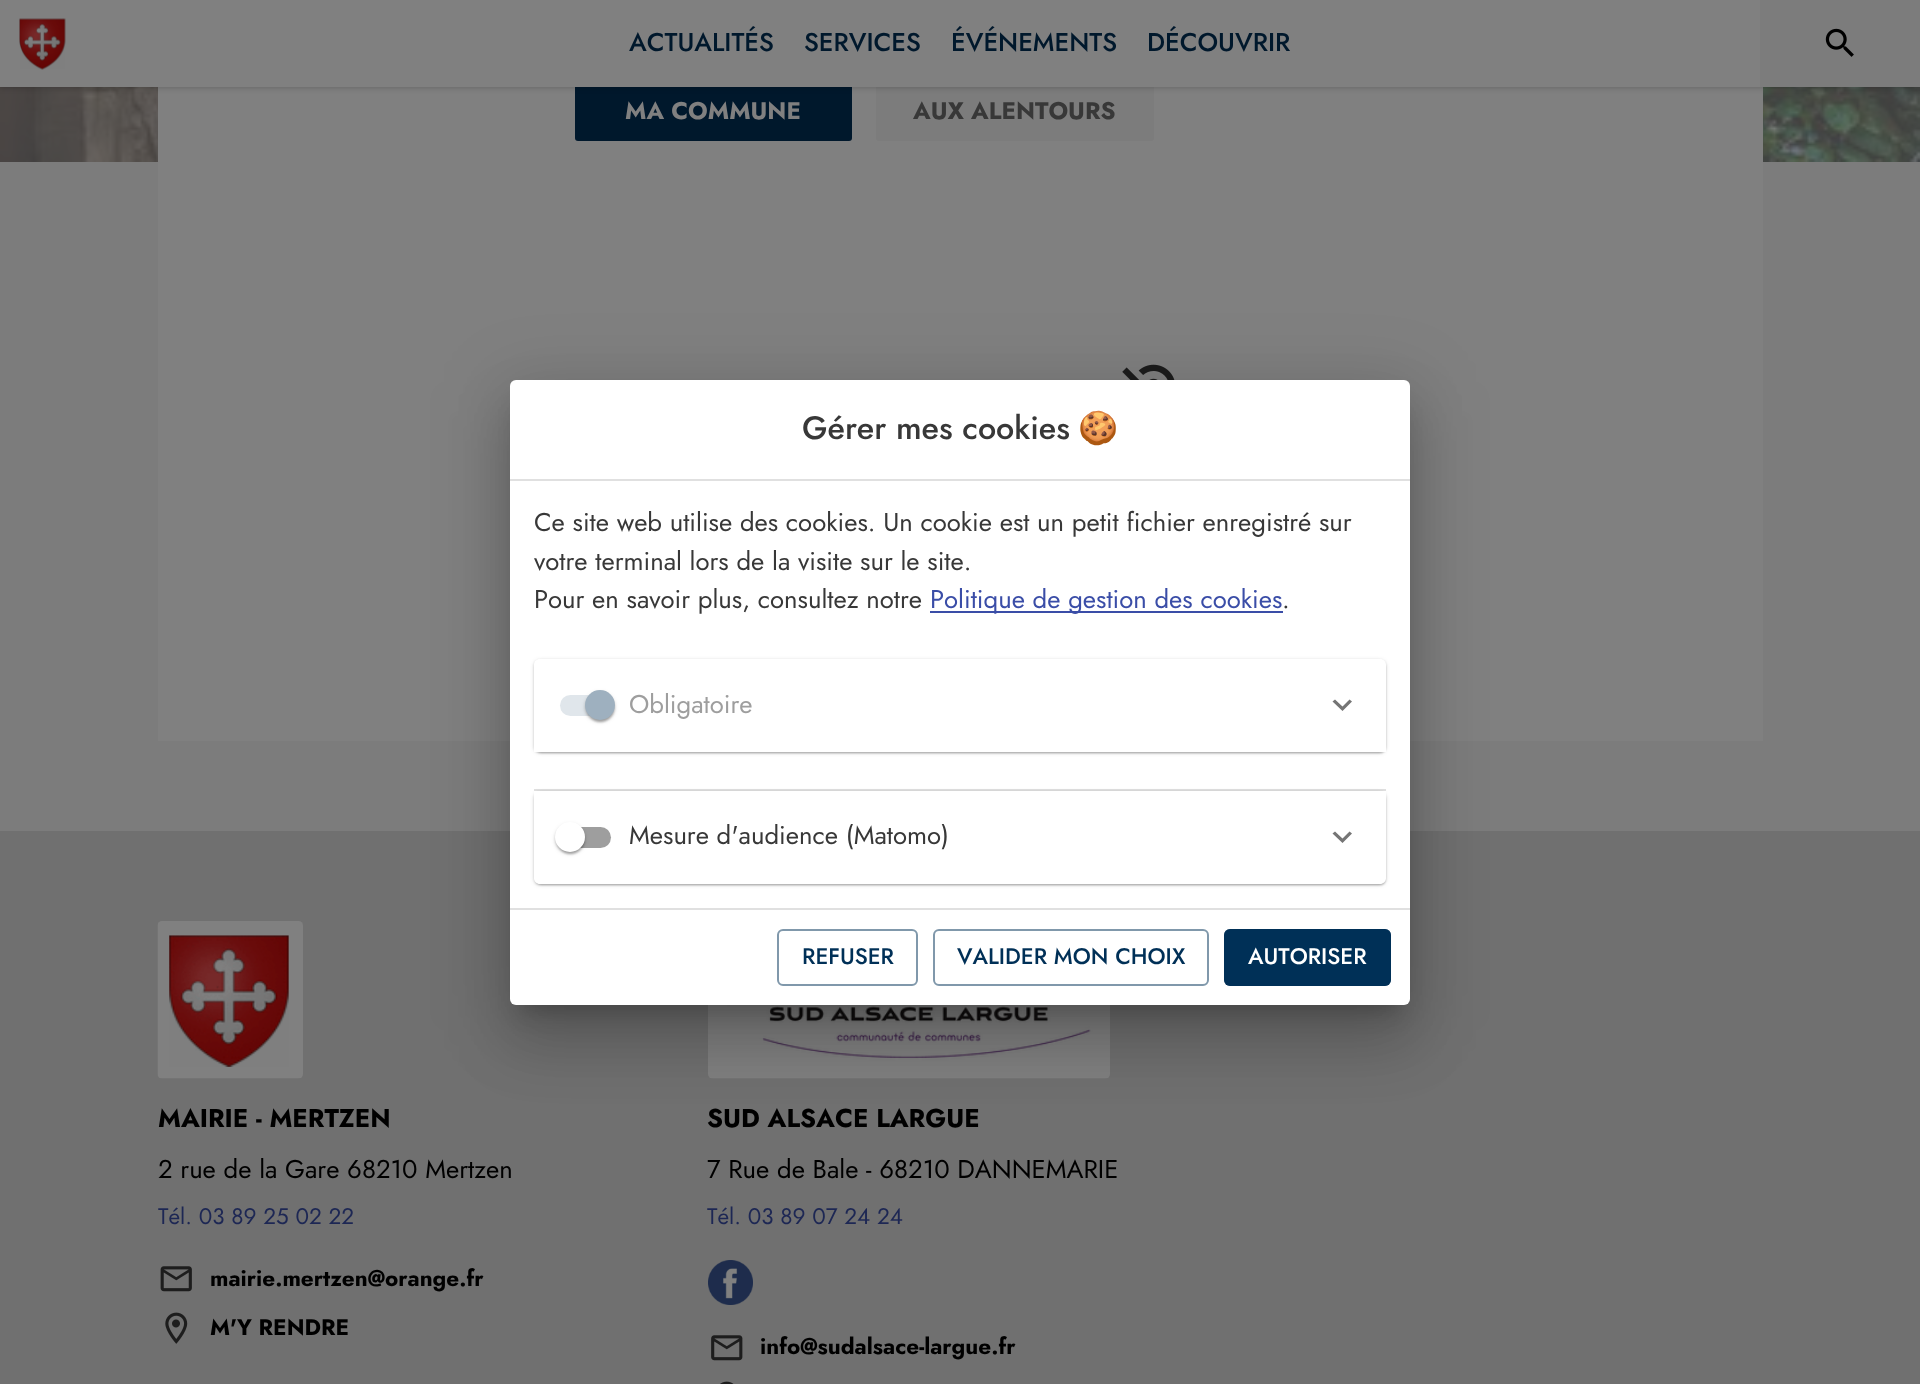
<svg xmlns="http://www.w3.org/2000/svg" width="1920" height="1384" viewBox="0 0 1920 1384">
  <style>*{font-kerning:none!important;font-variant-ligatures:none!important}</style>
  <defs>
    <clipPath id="clip1"><path d="M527 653H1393V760H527ZM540 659H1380C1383.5 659 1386 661.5 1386 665V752H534V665C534 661.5 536.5 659 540 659Z" clip-rule="evenodd"/></clipPath>
    <clipPath id="clip2"><path d="M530 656H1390V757H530ZM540 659H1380C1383.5 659 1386 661.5 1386 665V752H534V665C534 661.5 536.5 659 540 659Z" clip-rule="evenodd"/></clipPath>
    <clipPath id="clip3"><path d="M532 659H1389V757H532ZM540 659H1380C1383.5 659 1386 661.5 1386 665V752H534V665C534 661.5 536.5 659 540 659Z" clip-rule="evenodd"/></clipPath>
    <clipPath id="clip4"><path d="M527 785H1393V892H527ZM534 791H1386V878C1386 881.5 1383.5 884 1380 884H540C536.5 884 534 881.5 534 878Z" clip-rule="evenodd"/></clipPath>
    <clipPath id="clip5"><path d="M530 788H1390V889H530ZM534 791H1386V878C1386 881.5 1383.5 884 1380 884H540C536.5 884 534 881.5 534 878Z" clip-rule="evenodd"/></clipPath>
    <clipPath id="clip6"><path d="M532 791H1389V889H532ZM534 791H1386V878C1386 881.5 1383.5 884 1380 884H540C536.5 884 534 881.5 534 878Z" clip-rule="evenodd"/></clipPath>
  </defs>
  <rect width="100%" height="100%" fill="rgb(124,124,124)"/>
  <image x="0" y="87" width="1920" height="75" href="pic3.png"/>
  <rect x="158" y="87" width="1605" height="654" fill="rgb(128,128,128)"/>
  <rect x="575" y="81" width="277" height="60" rx="3" fill="rgb(0,24,44)"/>
  <rect x="876" y="81" width="278" height="60" rx="3" fill="rgb(124,124,124)"/>
  <rect x="0" y="0" width="1920" height="87" fill="rgba(0,0,0,0.25)" filter="blur(3px)"/>
  <rect x="0" y="0" width="1760" height="87" fill="rgb(128,128,128)"/>
  <image x="19" y="18" width="47" height="52" href="pic1.png"/>
  <g font-family="Jost" font-size="25.7" font-weight="500" fill="rgb(0,24,44)">
    <text x="629" y="51">ACTUALITÉS</text>
    <text x="804" y="51">SERVICES</text>
    <text x="951" y="51">ÉVÉNEMENTS</text>
    <text x="1147" y="51">DÉCOUVRIR</text>
  </g>
  <rect x="1760" y="0" width="160" height="87" fill="rgb(124,124,124)"/>
  <image x="1825" y="28" width="29" height="29" href="pic2.png"/>
  <text x="625" y="119" font-family="Jost" font-size="24" font-weight="bold" fill="rgb(128,128,128)">MA COMMUNE</text>
  <text x="913" y="119" font-family="Jost" font-size="24" font-weight="bold" fill="rgb(56,56,56)">AUX ALENTOURS</text>
  <image x="1122" y="364" width="53" height="16" href="pic4.png"/>
  <rect x="0" y="831" width="1920" height="553" fill="rgb(112,112,112)"/>
  <image x="157" y="921" width="146" height="158" href="pic5.png"/>
  <text x="158" y="1127" font-family="Jost" font-size="25.7" font-weight="bold" fill="rgb(0,0,0)">MAIRIE - MERTZEN</text>
  <text x="158" y="1178" font-family="Jost" font-size="25.7" fill="rgb(0,0,0)">2 rue de la Gare 68210 Mertzen</text>
  <text x="158" y="1224" font-family="Jost" font-size="22.5" fill="rgb(29,39,84)">Tél. 03 89 25 02 22</text>
  <image x="160" y="1266" width="32" height="26" href="pic6.png"/>
  <text x="210" y="1286" font-family="Jost" font-size="22.5" font-weight="bold" fill="rgb(0,0,0)">mairie.mertzen@orange.fr</text>
  <image x="165" y="1312" width="23" height="32" href="pic7.png"/>
  <text x="210" y="1335" font-family="Jost" font-size="22.5" font-weight="bold" fill="rgb(0,0,0)">M'Y RENDRE</text>
  <image x="708" y="1005" width="402" height="74" href="pic8.png"/>
  <text x="707" y="1127" font-family="Jost" font-size="25.7" font-weight="bold" fill="rgb(0,0,0)">SUD ALSACE LARGUE</text>
  <text x="707" y="1178" font-family="Jost" font-size="25.7" fill="rgb(0,0,0)">7 Rue de Bale - 68210 DANNEMARIE</text>
  <text x="707" y="1224" font-family="Jost" font-size="22.5" fill="rgb(29,39,84)">Tél. 03 89 07 24 24</text>
  <image x="708" y="1260" width="45" height="45" href="pic9.png"/>
  <image x="711" y="1335" width="32" height="26" href="pic10.png"/>
  <text x="760" y="1354" font-family="Jost" font-size="22.5" font-weight="bold" fill="rgb(0,0,0)">info@sudalsace-largue.fr</text>
  <image x="720" y="1381" width="14" height="3" href="pic11.png"/>
  <rect x="498" y="381" width="924" height="650" rx="18" fill="rgba(0,0,0,0.12)" filter="blur(34.5px)"/>
  <rect x="506" y="411" width="909" height="635" rx="11" fill="rgba(0,0,0,0.14)" filter="blur(28.5px)"/>
  <rect x="521" y="407" width="879" height="604" fill="rgba(0,0,0,0.2)" filter="blur(11px)"/>
  <rect x="510" y="380" width="900" height="625" rx="6" fill="rgb(255,255,255)"/>
  <text x="802" y="439" font-family="Jost" font-size="32.25" font-weight="500" fill="rgb(56,56,56)">Gérer mes cookies</text>
  <text x="1078" y="439" font-family="Noto Color Emoji" font-size="32.25" fill="rgb(56,56,56)">🍪</text>
  <rect x="510" y="479" width="900" height="2" fill="rgb(224,224,224)"/>
  <rect x="510" y="908" width="900" height="2" fill="rgb(224,224,224)"/>
  <g font-family="Jost" font-size="25.7" fill="rgb(56,56,56)">
    <text>
      <tspan x="534" y="531">Ce site web utilise des cookies. Un cookie est un petit fichier enregistré sur</tspan>
      <tspan x="534" y="570">votre terminal lors de la visite sur le site.</tspan>
      <tspan x="534" y="608">Pour en savoir plus, consultez notre</tspan>
    </text>
  </g>
  <rect x="930" y="611" width="353" height="2" fill="rgb(58,77,167)"/>
  <text x="930" y="608" font-family="Jost" font-size="25.7" fill="rgb(58,77,167)">Politique de gestion des cookies</text>
  <text x="1282" y="608" font-family="Jost" font-size="25.7" fill="rgb(56,56,56)">.</text>
  <g clip-path="url(#clip1)">
    <rect x="534" y="660" width="852" height="93" rx="6" fill="rgba(0,0,0,0.12)" filter="blur(2px)"/>
  </g>
  <g clip-path="url(#clip2)">
    <rect x="534" y="660" width="852" height="93" rx="6" fill="rgba(0,0,0,0.14)" filter="blur(1px)"/>
  </g>
  <g clip-path="url(#clip3)">
    <rect x="536" y="663" width="849" height="90" rx="5" fill="rgba(0,0,0,0.2)" filter="blur(1px)"/>
  </g>
  <rect x="560" y="695" width="51" height="21" rx="10.5" fill="rgb(224,230,235)"/>
  <rect x="585" y="692" width="30" height="30" rx="15" fill="rgba(0,0,0,0.12)" filter="blur(2px)"/>
  <rect x="585" y="692" width="30" height="30" rx="15" fill="rgba(0,0,0,0.14)" filter="blur(1px)"/>
  <rect x="587" y="695" width="27" height="27" rx="13.5" fill="rgba(0,0,0,0.2)" filter="blur(1px)"/>
  <circle cx="600" cy="705" r="15" fill="rgb(158,176,191)"/>
  <text x="629" y="713" font-family="Jost" font-size="25.7" fill="rgb(158,158,158)">Obligatoire</text>
  <path d="M1349.5 699.5L1342.5 706.5L1335 699.5L1332.5 701.5L1342.5 711L1352 701.5Z" fill="rgb(117,117,117)"/>
  <g clip-path="url(#clip4)">
    <rect x="534" y="792" width="852" height="93" rx="6" fill="rgba(0,0,0,0.12)" filter="blur(2px)"/>
  </g>
  <g clip-path="url(#clip5)">
    <rect x="534" y="792" width="852" height="93" rx="6" fill="rgba(0,0,0,0.14)" filter="blur(1px)"/>
  </g>
  <g clip-path="url(#clip6)">
    <rect x="536" y="795" width="849" height="90" rx="5" fill="rgba(0,0,0,0.2)" filter="blur(1px)"/>
  </g>
  <rect x="534" y="789" width="852" height="2" fill="rgba(0,0,0,0.12)"/>
  <rect x="560" y="827" width="51" height="21" rx="10.5" fill="rgb(158,158,158)"/>
  <rect x="555" y="824" width="30" height="30" rx="15" fill="rgba(0,0,0,0.12)" filter="blur(2px)"/>
  <rect x="555" y="824" width="30" height="30" rx="15" fill="rgba(0,0,0,0.14)" filter="blur(1px)"/>
  <rect x="557" y="827" width="27" height="27" rx="13.5" fill="rgba(0,0,0,0.2)" filter="blur(1px)"/>
  <circle cx="570" cy="837" r="15" fill="rgb(255,255,255)"/>
  <text x="629" y="844" font-family="Jost" font-size="25.7" fill="rgb(56,56,56)">Mesure d'audience (Matomo)</text>
  <path d="M1349.5 831.5L1342.5 838.5L1335 831.5L1332.5 833.5L1342.5 843L1352 833.5Z" fill="rgb(117,117,117)"/>
  <rect x="778" y="930" width="139" height="55" rx="5" fill="none" stroke="rgb(128,152,171)" stroke-width="2"/>
  <text x="802" y="964" font-family="Jost" font-size="22.5" font-weight="500" fill="rgb(0,48,87)">REFUSER</text>
  <rect x="934" y="930" width="274" height="55" rx="5" fill="none" stroke="rgb(128,152,171)" stroke-width="2"/>
  <text x="957" y="964" font-family="Jost" font-size="22.5" font-weight="500" fill="rgb(0,48,87)">VALIDER MON CHOIX</text>
  <rect x="1224" y="929" width="167" height="57" rx="6" fill="rgb(0,48,87)"/>
  <rect x="1225" y="930" width="165" height="55" rx="5" fill="none" stroke="rgba(0,48,87,0.5)" stroke-width="2"/>
  <text x="1248" y="964" font-family="Jost" font-size="22.5" font-weight="500" fill="rgb(255,255,255)">AUTORISER</text>
</svg>
